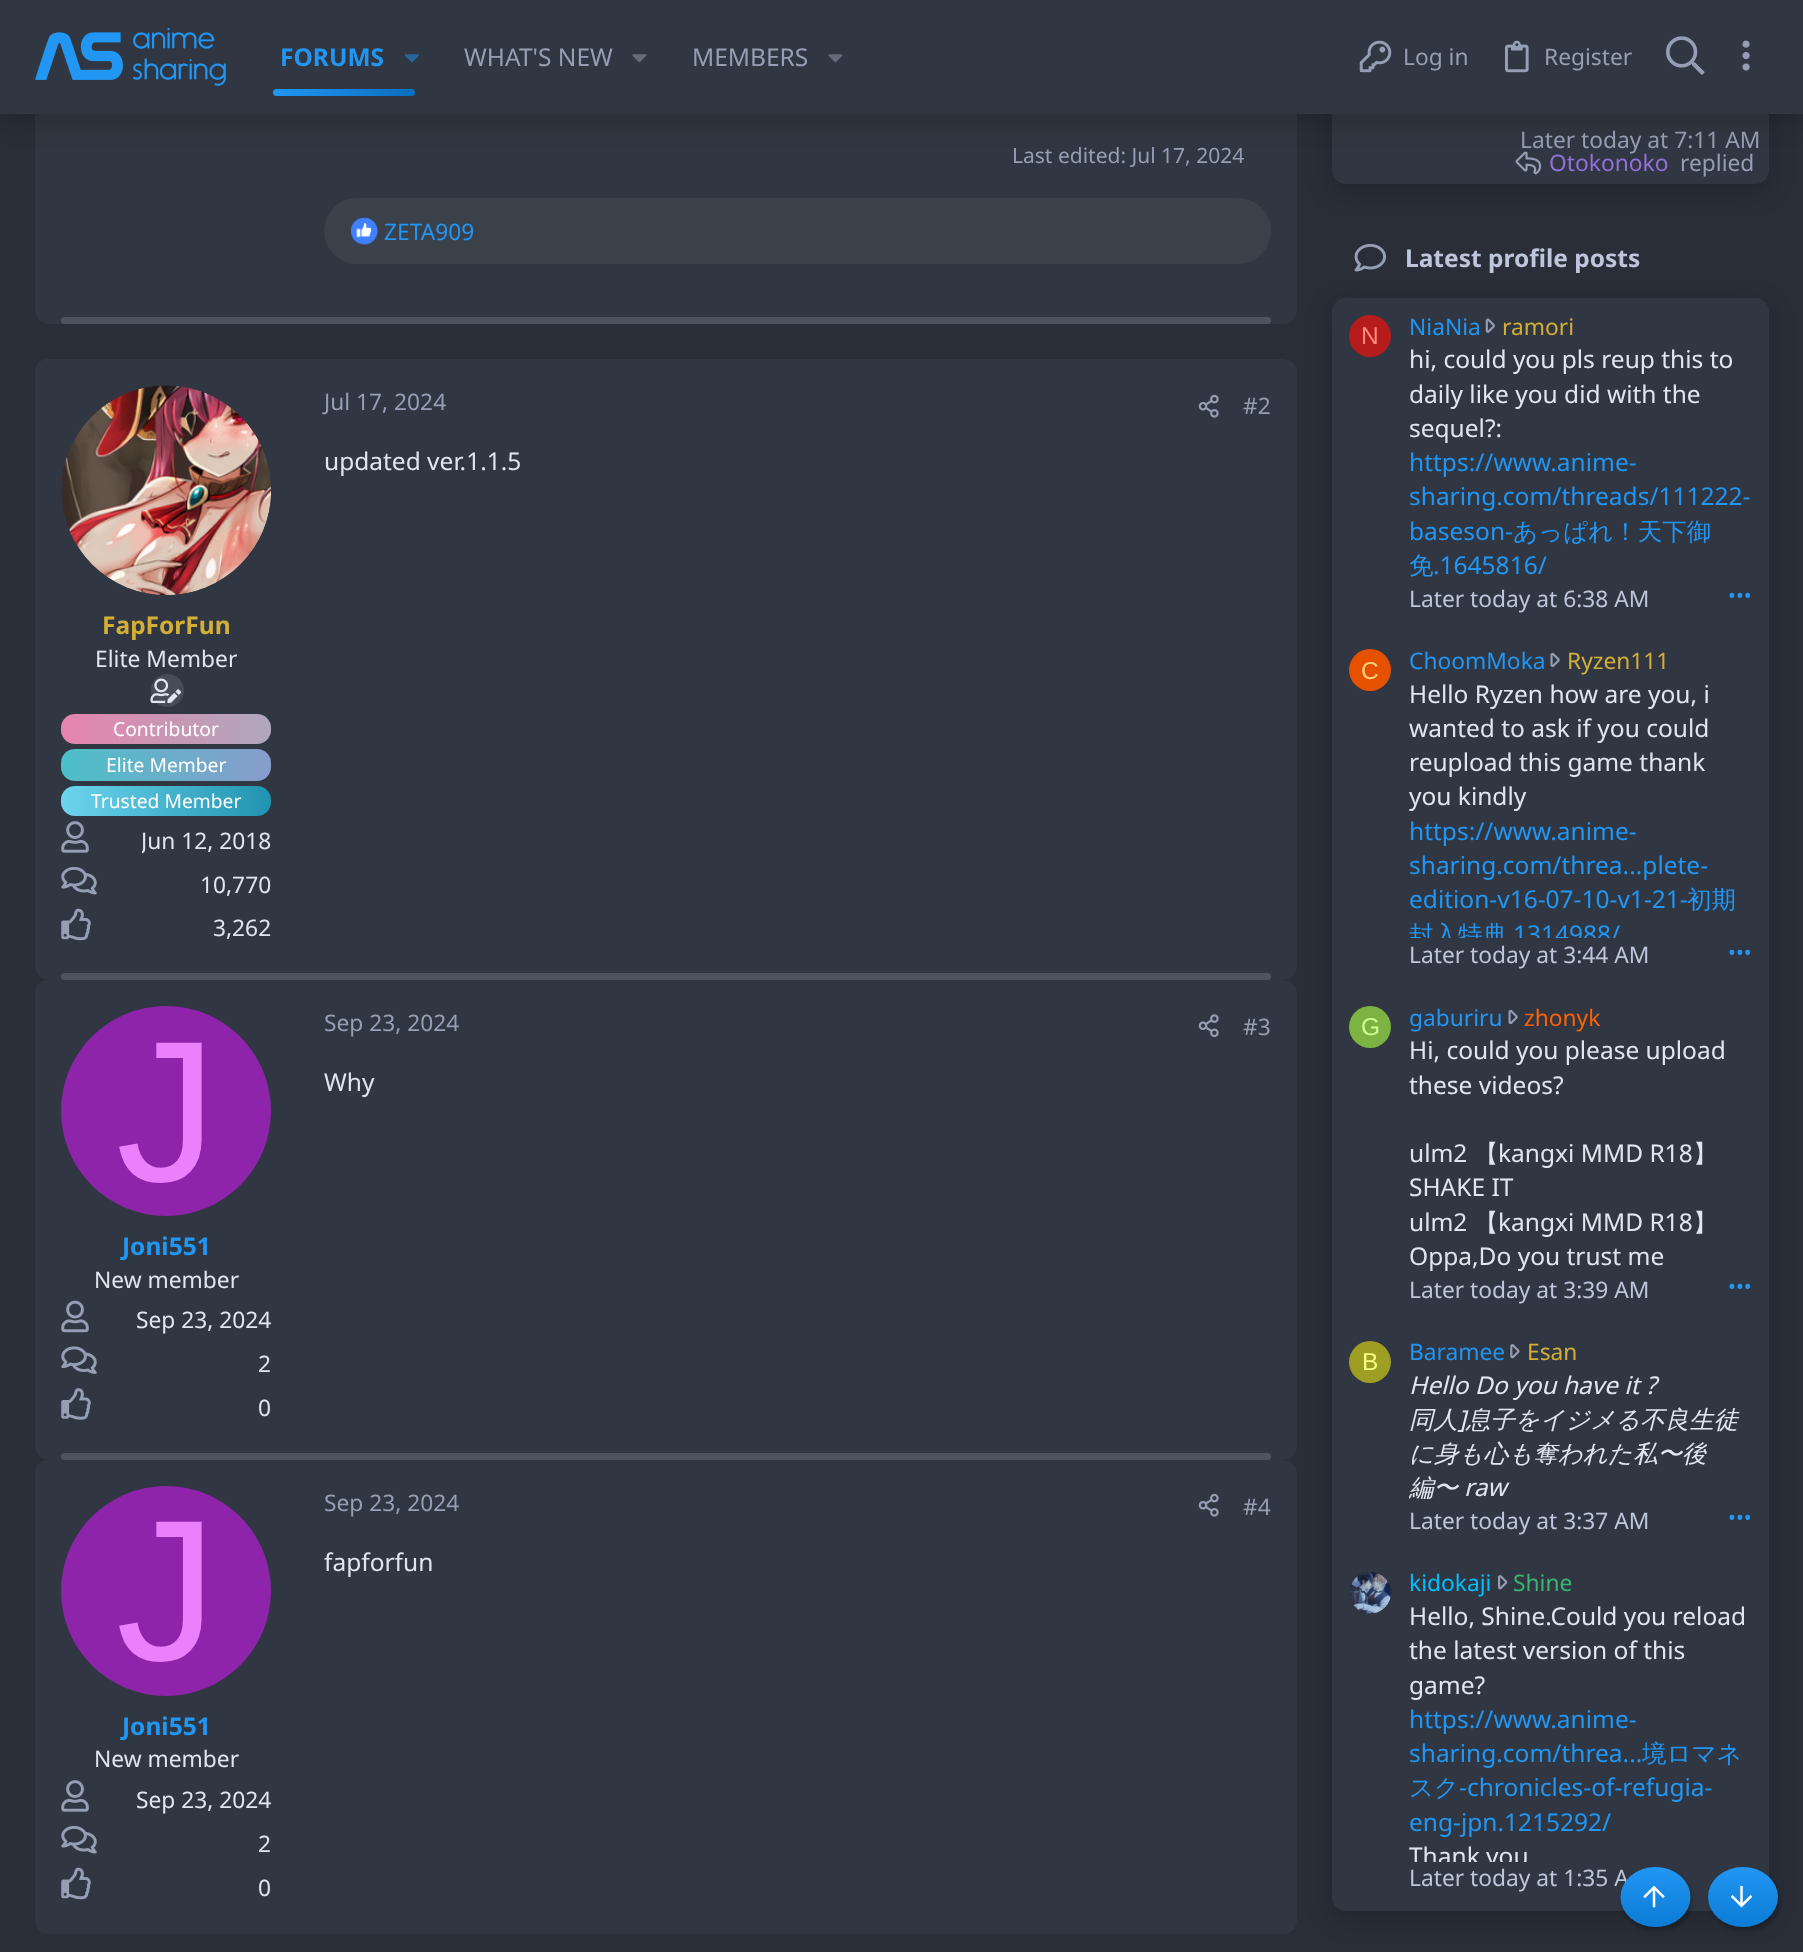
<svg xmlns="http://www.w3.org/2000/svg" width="1803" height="1952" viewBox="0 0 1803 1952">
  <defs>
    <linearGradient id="g1" gradientUnits="userSpaceOnUse" x1="273" y1="93" x2="415" y2="93"><stop offset="0" stop-color="rgb(33,150,243)"/><stop offset="1" stop-color="rgb(10,110,189)"/></linearGradient>
    <linearGradient id="g2" gradientUnits="userSpaceOnUse" x1="61" y1="774" x2="901" y2="774"><stop offset="0" stop-color="rgb(230,132,174)"/><stop offset="0.5" stop-color="rgb(121,203,202)"/><stop offset="1" stop-color="rgb(119,161,211)"/></linearGradient>
    <linearGradient id="g3" gradientUnits="userSpaceOnUse" x1="61" y1="812" x2="901" y2="812"><stop offset="0" stop-color="rgb(75,192,200)"/><stop offset="0.5" stop-color="rgb(199,121,208)"/><stop offset="1" stop-color="rgb(254,172,94)"/></linearGradient>
    <linearGradient id="g4" gradientUnits="userSpaceOnUse" x1="61" y1="801" x2="271" y2="801"><stop offset="0" stop-color="rgb(109,213,237)"/><stop offset="1" stop-color="rgb(33,147,176)"/></linearGradient>
    <clipPath id="clip1"><rect x="142" y="821" width="129" height="38"/></clipPath>
    <clipPath id="clip2"><rect x="1409" y="676" width="343" height="262"/></clipPath>
    <clipPath id="clip3"><rect x="1409" y="1367" width="343" height="138"/></clipPath>
    <clipPath id="clip4"><rect x="1409" y="1600" width="343" height="262"/></clipPath>
    <linearGradient id="g5" gradientUnits="userSpaceOnUse" x1="1656" y1="1867" x2="1656" y2="1927"><stop offset="0" stop-color="rgb(33,150,243)"/><stop offset="1" stop-color="rgb(12,124,213)"/></linearGradient>
    <linearGradient id="g6" gradientUnits="userSpaceOnUse" x1="1743" y1="1867" x2="1743" y2="1927"><stop offset="0" stop-color="rgb(33,150,243)"/><stop offset="1" stop-color="rgb(12,124,213)"/></linearGradient>
  </defs>
  <rect width="100%" height="100%" fill="rgb(41,46,57)"/>
  <rect x="1332" y="-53" width="437" height="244" rx="14" fill="rgba(0,0,0,0.2)" filter="blur(13px)"/>
  <rect x="35" y="1460" width="1262" height="474" rx="14" fill="rgb(49,55,66)"/>
  <rect x="1332" y="305" width="437" height="1613" rx="14" fill="rgba(0,0,0,0.2)" filter="blur(13px)"/>
  <rect x="35" y="-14" width="1262" height="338" rx="14" fill="rgb(49,55,66)"/>
  <rect x="1332" y="-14" width="437" height="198" rx="14" fill="rgb(49,55,66)"/>
  <text x="1520" y="148" font-family="Noto Sans" font-size="22.75" fill="rgb(149,159,180)">Later today at 7:11 AM</text>
  <image x="1515" y="151" width="27" height="24" href="pic19.png"/>
  <rect x="0" y="7" width="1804" height="114" fill="rgba(0,0,0,0.2)" filter="blur(13px)"/>
  <rect x="0" y="0" width="1803" height="114" fill="rgb(49,55,66)"/>
  <image x="35" y="28" width="191" height="58" href="pic1.png"/>
  <text x="280" y="66" font-family="Noto Sans" font-size="24.5" font-weight="bold" fill="rgb(33,150,243)">FORUMS</text>
  <image x="404" y="54" width="15" height="9" href="pic2.png"/>
  <rect x="273" y="89" width="142" height="7" rx="3.5" fill="url(#g1)"/>
  <text x="464" y="66" font-family="Noto Sans" font-size="24.5" fill="rgb(149,159,180)">WHAT'S NEW</text>
  <image x="632" y="54" width="15" height="9" href="pic3.png"/>
  <text x="692" y="66" font-family="Noto Sans" font-size="24.5" fill="rgb(149,159,180)">MEMBERS</text>
  <image x="828" y="54" width="15" height="9" href="pic3.png"/>
  <image x="1359" y="40" width="33" height="33" href="pic4.png"/>
  <text x="1403" y="65" font-family="Noto Sans" font-size="22.75" fill="rgb(149,159,180)">Log in</text>
  <image x="1505" y="40" width="24" height="33" href="pic5.png"/>
  <text x="1544" y="65" font-family="Noto Sans" font-size="22.75" fill="rgb(149,159,180)">Register</text>
  <image x="1666" y="36" width="39" height="39" href="pic6.png"/>
  <image x="1742" y="40" width="8" height="31" href="pic7.png"/>
  <text x="1012" y="163" font-family="Noto Sans" font-size="21" fill="rgb(149,159,180)">Last edited: Jul 17, 2024</text>
  <rect x="324" y="198" width="947" height="66" rx="33" fill="rgb(59,65,75)"/>
  <image x="350" y="217" width="28" height="28" href="pic8.png"/>
  <text x="384" y="240" font-family="Noto Sans" font-size="22.75" fill="rgb(33,150,243)">ZETA909</text>
  <rect x="61" y="317" width="1210" height="7" rx="3.5" fill="rgb(77,84,96)"/>
  <rect x="35" y="359" width="1262" height="621" rx="14" fill="rgb(49,55,66)"/>
  <text x="324" y="410" font-family="Noto Sans" font-size="22.75" fill="rgb(149,159,180)">Jul 17, 2024</text>
  <image x="1198" y="394" width="21" height="24" href="pic9.png"/>
  <text x="1243" y="414" font-family="Noto Sans" font-size="22.75" fill="rgb(149,159,180)">#2</text>
  <text x="324" y="470" font-family="Noto Sans" font-size="24.5" fill="rgb(224,230,240)">updated ver.1.1.5</text>
  <path d="M47 359H298V973H47C40.5 973 35 967.5 35 961V371C35 364.5 40.5 359 47 359Z" fill="rgb(49,55,66)"/>
  <image x="61" y="385" width="210" height="210" href="pic10.png"/>
  <text x="102" y="634" font-family="Noto Sans" font-size="24.5" font-weight="bold" fill="rgb(212,175,55)">FapForFun</text>
  <text x="95" y="667" font-family="Noto Sans" font-size="22.75" fill="rgb(224,230,240)">Elite Member</text>
  <circle cx="167.5" cy="690.5" r="16.5" fill="rgb(70,76,88)"/>
  <image x="150" y="678" width="32" height="26" href="pic11.png"/>
  <rect x="61" y="714" width="210" height="30" rx="14" fill="url(#g2)"/>
  <text x="113" y="736" font-family="Noto Sans" font-size="19.25" fill="rgb(255,255,255)">Contributor</text>
  <rect x="61" y="749" width="210" height="32" rx="14" fill="url(#g3)"/>
  <text x="106" y="772" font-family="Noto Sans" font-size="19.25" fill="rgb(255,255,255)">Elite Member</text>
  <rect x="61" y="786" width="210" height="30" rx="14" fill="url(#g4)"/>
  <text x="91" y="808" font-family="Noto Sans" font-size="19.25" fill="rgb(255,255,255)">Trusted Member</text>
  <image x="61" y="821" width="28" height="32" href="pic12.png"/>
  <g clip-path="url(#clip1)">
    <text x="141" y="849" font-family="Noto Sans" font-size="22.75" fill="rgb(224,230,240)">Jun 12, 2018</text>
  </g>
  <image x="61" y="866" width="36" height="29" href="pic13.png"/>
  <text x="200" y="893" font-family="Noto Sans" font-size="22.75" fill="rgb(224,230,240)">10,770</text>
  <image x="61" y="908" width="30" height="33" href="pic14.png"/>
  <text x="213" y="936" font-family="Noto Sans" font-size="22.75" fill="rgb(224,230,240)">3,262</text>
  <rect x="61" y="973" width="1210" height="7" rx="3.5" fill="rgb(77,84,96)"/>
  <rect x="35" y="980" width="1262" height="480" rx="14" fill="rgb(49,55,66)"/>
  <path d="M47 980H298V1453H47C40.5 1453 35 1447.5 35 1441V992C35 985.5 40.5 980 47 980Z" fill="rgb(49,55,66)"/>
  <circle cx="166" cy="1111" r="105" fill="rgb(142,36,170)"/>
  <text x="116" y="1181" font-family="Liberation Sans" font-size="201" fill="rgb(234,128,252)">J</text>
  <text x="122" y="1255" font-family="Noto Sans" font-size="24.5" font-weight="bold" fill="rgb(33,150,243)">Joni551</text>
  <text x="94" y="1288" font-family="Noto Sans" font-size="22.75" fill="rgb(224,230,240)">New member</text>
  <image x="61" y="1300" width="28" height="33" href="pic15.png"/>
  <text x="136" y="1328" font-family="Noto Sans" font-size="22.75" fill="rgb(224,230,240)">Sep 23, 2024</text>
  <image x="61" y="1346" width="36" height="28" href="pic16.png"/>
  <text x="258" y="1372" font-family="Noto Sans" font-size="22.75" fill="rgb(224,230,240)">2</text>
  <image x="61" y="1388" width="30" height="32" href="pic17.png"/>
  <text x="258" y="1416" font-family="Noto Sans" font-size="22.75" fill="rgb(224,230,240)">0</text>
  <text x="324" y="1031" font-family="Noto Sans" font-size="22.75" fill="rgb(149,159,180)">Sep 23, 2024</text>
  <image x="1198" y="1014" width="21" height="24" href="pic18.png"/>
  <text x="1243" y="1035" font-family="Noto Sans" font-size="22.75" fill="rgb(149,159,180)">#3</text>
  <text x="324" y="1091" font-family="Noto Sans" font-size="24.5" fill="rgb(224,230,240)">Why</text>
  <rect x="61" y="1453" width="1210" height="7" rx="3.5" fill="rgb(77,84,96)"/>
  <path d="M47 1460H298V1932H47C40.5 1932 35 1926.5 35 1920V1472C35 1465.5 40.5 1460 47 1460Z" fill="rgb(49,55,66)"/>
  <circle cx="166" cy="1591" r="105" fill="rgb(142,36,170)"/>
  <text x="116" y="1660" font-family="Liberation Sans" font-size="201" fill="rgb(234,128,252)">J</text>
  <text x="122" y="1735" font-family="Noto Sans" font-size="24.5" font-weight="bold" fill="rgb(33,150,243)">Joni551</text>
  <text x="94" y="1767" font-family="Noto Sans" font-size="22.75" fill="rgb(224,230,240)">New member</text>
  <image x="61" y="1780" width="28" height="32" href="pic12.png"/>
  <text x="136" y="1808" font-family="Noto Sans" font-size="22.75" fill="rgb(224,230,240)">Sep 23, 2024</text>
  <image x="61" y="1825" width="36" height="29" href="pic13.png"/>
  <text x="258" y="1852" font-family="Noto Sans" font-size="22.75" fill="rgb(224,230,240)">2</text>
  <image x="61" y="1867" width="30" height="33" href="pic14.png"/>
  <text x="258" y="1896" font-family="Noto Sans" font-size="22.75" fill="rgb(224,230,240)">0</text>
  <text x="324" y="1511" font-family="Noto Sans" font-size="22.75" fill="rgb(149,159,180)">Sep 23, 2024</text>
  <image x="1198" y="1493" width="21" height="24" href="pic9.png"/>
  <text x="1243" y="1515" font-family="Noto Sans" font-size="22.75" fill="rgb(149,159,180)">#4</text>
  <text x="324" y="1571" font-family="Noto Sans" font-size="24.5" fill="rgb(224,230,240)">fapforfun</text>
  <text x="1549" y="171" font-family="Noto Sans" font-size="22.75" fill="rgb(147,112,219)">Otokonoko</text>
  <text x="1680" y="171" font-family="Noto Sans" font-size="22.75" fill="rgb(149,159,180)">replied</text>
  <image x="1354" y="243" width="33" height="29" href="pic20.png"/>
  <text x="1405" y="267" font-family="Noto Sans" font-size="24.5" font-weight="bold" fill="rgb(189,198,219)">Latest profile posts</text>
  <rect x="1332" y="298" width="437" height="1613" rx="14" fill="rgb(49,55,66)"/>
  <circle cx="1370" cy="336" r="21" fill="rgb(183,28,28)"/>
  <text x="1361" y="344" font-family="Liberation Sans" font-size="24.5" fill="rgb(255,138,128)">N</text>
  <text x="1409" y="335" font-family="Noto Sans" font-size="22.75" fill="rgb(33,150,243)">NiaNia</text>
  <image x="1485" y="318" width="10" height="15" href="pic21.png"/>
  <text x="1502" y="335" font-family="Noto Sans" font-size="22.75" fill="rgb(212,175,55)">ramori</text>
  <g font-family="Noto Sans" font-size="24.5" fill="rgb(224,230,240)">
    <text>
      <tspan x="1409" y="368">hi, could you pls reup this to</tspan>
      <tspan x="1409" y="403">daily like you did with the</tspan>
      <tspan x="1409" y="437">sequel?:</tspan>
    </text>
  </g>
  <g font-family="Noto Sans" font-size="24.5" fill="rgb(33,150,243)">
    <text>
      <tspan x="1409" y="471">https://www.anime-</tspan>
      <tspan x="1409" y="505">sharing.com/threads/111222-</tspan>
      <tspan x="1409" y="540">baseson-</tspan>
    </text>
  </g>
  <g font-family="WenQuanYi Zen Hei" font-size="24.5" font-weight="500" fill="rgb(33,150,243)">
    <text x="1513" y="540">あっぱれ！天下御</text>
    <text x="1409" y="574">免</text>
  </g>
  <text x="1433" y="574" font-family="Noto Sans" font-size="24.5" fill="rgb(33,150,243)">.1645816/</text>
  <text x="1409" y="607" font-family="Noto Sans" font-size="22.75" fill="rgb(189,198,219)">Later today at 6:38 AM</text>
  <text x="1728" y="603" font-family="Noto Sans" font-size="21" fill="rgb(33,150,243)">•••</text>
  <circle cx="1370" cy="670" r="21" fill="rgb(230,81,0)"/>
  <text x="1361" y="679" font-family="Liberation Sans" font-size="24.5" fill="rgb(255,209,128)">C</text>
  <text x="1409" y="669" font-family="Noto Sans" font-size="22.75" fill="rgb(33,150,243)">ChoomMoka</text>
  <image x="1550" y="652" width="10" height="16" href="pic22.png"/>
  <text x="1567" y="669" font-family="Noto Sans" font-size="22.75" fill="rgb(212,175,55)">Ryzen111</text>
  <g font-family="Noto Sans" font-size="24.5" fill="rgb(224,230,240)">
    <text>
      <tspan x="1409" y="703">Hello Ryzen how are you, i</tspan>
      <tspan x="1409" y="737">wanted to ask if you could</tspan>
      <tspan x="1409" y="771">reupload this game thank</tspan>
      <tspan x="1409" y="805">you kindly</tspan>
    </text>
  </g>
  <g font-family="Noto Sans" font-size="24.5" fill="rgb(33,150,243)">
    <text>
      <tspan x="1409" y="840">https://www.anime-</tspan>
      <tspan x="1409" y="874">sharing.com/threa...plete-</tspan>
      <tspan x="1409" y="908">edition-v16-07-10-v1-21-</tspan>
    </text>
  </g>
  <text x="1687" y="908" font-family="WenQuanYi Zen Hei" font-size="24.5" font-weight="500" fill="rgb(33,150,243)">初期</text>
  <g clip-path="url(#clip2)">
    <text x="1409" y="943" font-family="WenQuanYi Zen Hei" font-size="24.5" font-weight="500" fill="rgb(33,150,243)">封入特典</text>
    <text x="1513" y="943" font-family="Noto Sans" font-size="24.5" fill="rgb(33,150,243)">1314988/</text>
  </g>
  <text x="1409" y="963" font-family="Noto Sans" font-size="22.75" fill="rgb(189,198,219)">Later today at 3:44 AM</text>
  <text x="1728" y="960" font-family="Noto Sans" font-size="21" fill="rgb(33,150,243)">•••</text>
  <circle cx="1370" cy="1027" r="21" fill="rgb(124,179,66)"/>
  <text x="1361" y="1035" font-family="Liberation Sans" font-size="24.5" fill="rgb(204,255,144)">G</text>
  <text x="1409" y="1026" font-family="Noto Sans" font-size="22.75" fill="rgb(33,150,243)">gaburiru</text>
  <image x="1508" y="1009" width="10" height="16" href="pic22.png"/>
  <text x="1524" y="1026" font-family="Noto Sans" font-size="22.75" fill="rgb(255,97,3)">zhonyk</text>
  <g font-family="Noto Sans" font-size="24.5" fill="rgb(224,230,240)">
    <text>
      <tspan x="1409" y="1059">Hi, could you please upload</tspan>
      <tspan x="1409" y="1094">these videos?</tspan>
    </text>
    <text x="1409" y="1162">ulm2</text>
  </g>
  <text x="1474" y="1162" font-family="WenQuanYi Zen Hei" font-size="24.5" font-weight="500" fill="rgb(224,230,240)">【</text>
  <text x="1498" y="1162" font-family="Noto Sans" font-size="24.5" fill="rgb(224,230,240)">kangxi MMD R18</text>
  <text x="1693" y="1162" font-family="WenQuanYi Zen Hei" font-size="24.5" font-weight="500" fill="rgb(224,230,240)">】</text>
  <g font-family="Noto Sans" font-size="24.5" fill="rgb(224,230,240)">
    <text>
      <tspan x="1409" y="1196">SHAKE IT</tspan>
      <tspan x="1409" y="1231">ulm2</tspan>
    </text>
  </g>
  <text x="1474" y="1231" font-family="WenQuanYi Zen Hei" font-size="24.5" font-weight="500" fill="rgb(224,230,240)">【</text>
  <text x="1498" y="1231" font-family="Noto Sans" font-size="24.5" fill="rgb(224,230,240)">kangxi MMD R18</text>
  <text x="1693" y="1231" font-family="WenQuanYi Zen Hei" font-size="24.5" font-weight="500" fill="rgb(224,230,240)">】</text>
  <text x="1409" y="1265" font-family="Noto Sans" font-size="24.5" fill="rgb(224,230,240)">Oppa,Do you trust me</text>
  <text x="1409" y="1298" font-family="Noto Sans" font-size="22.75" fill="rgb(189,198,219)">Later today at 3:39 AM</text>
  <text x="1728" y="1294" font-family="Noto Sans" font-size="21" fill="rgb(33,150,243)">•••</text>
  <circle cx="1370" cy="1362" r="21" fill="rgb(158,157,36)"/>
  <text x="1362" y="1370" font-family="Liberation Sans" font-size="24.5" fill="rgb(244,255,129)">B</text>
  <text x="1409" y="1360" font-family="Noto Sans" font-size="22.75" fill="rgb(33,150,243)">Baramee</text>
  <image x="1510" y="1344" width="10" height="15" href="pic23.png"/>
  <text x="1527" y="1360" font-family="Noto Sans" font-size="22.75" fill="rgb(212,175,55)">Esan</text>
  <text x="1409" y="1394" font-family="Noto Sans" font-size="24.5" font-style="italic" fill="rgb(224,230,240)">Hello Do you have it ?</text>
  <text x="1409" y="1428" font-family="WenQuanYi Zen Hei" font-size="24.5" font-weight="500" font-style="italic" fill="rgb(224,230,240)">同人</text>
  <text x="1458" y="1428" font-family="Noto Sans" font-size="24.5" font-style="italic" fill="rgb(224,230,240)">]</text>
  <g font-family="WenQuanYi Zen Hei" font-size="24.5" font-weight="500" font-style="italic" fill="rgb(224,230,240)">
    <text x="1466" y="1428">息子をイジメる不良生徒</text>
    <text x="1409" y="1462">に身も心も奪われた私〜後</text>
  </g>
  <g clip-path="url(#clip3)">
    <text x="1409" y="1496" font-family="WenQuanYi Zen Hei" font-size="24.5" font-weight="500" font-style="italic" fill="rgb(224,230,240)">編〜</text>
  </g>
  <text x="1464" y="1496" font-family="Noto Sans" font-size="24.5" font-style="italic" fill="rgb(224,230,240)">raw</text>
  <text x="1409" y="1529" font-family="Noto Sans" font-size="22.75" fill="rgb(189,198,219)">Later today at 3:37 AM</text>
  <text x="1728" y="1525" font-family="Noto Sans" font-size="21" fill="rgb(33,150,243)">•••</text>
  <image x="1350" y="1572" width="41" height="42" href="pic24.png"/>
  <text x="1409" y="1591" font-family="Noto Sans" font-size="22.75" fill="rgb(0,191,255)">kidokaji</text>
  <image x="1498" y="1575" width="10" height="15" href="pic25.png"/>
  <text x="1513" y="1591" font-family="Noto Sans" font-size="22.75" fill="rgb(60,179,113)">Shine</text>
  <g font-family="Noto Sans" font-size="24.5" fill="rgb(224,230,240)">
    <text>
      <tspan x="1409" y="1625">Hello, Shine.Could you reload</tspan>
      <tspan x="1409" y="1659">the latest version of this</tspan>
      <tspan x="1409" y="1694">game?</tspan>
    </text>
  </g>
  <g font-family="Noto Sans" font-size="24.5" fill="rgb(33,150,243)">
    <text>
      <tspan x="1409" y="1728">https://www.anime-</tspan>
      <tspan x="1409" y="1762">sharing.com/threa...</tspan>
    </text>
  </g>
  <g font-family="WenQuanYi Zen Hei" font-size="24.5" font-weight="500" fill="rgb(33,150,243)">
    <text x="1642" y="1762">境ロマネ</text>
    <text x="1409" y="1796">スク</text>
  </g>
  <g font-family="Noto Sans" font-size="24.5" fill="rgb(33,150,243)">
    <text x="1459" y="1796">-chronicles-of-refugia-</text>
    <text x="1409" y="1831">eng-jpn.1215292/</text>
  </g>
  <g clip-path="url(#clip4)">
    <text x="1409" y="1865" font-family="Noto Sans" font-size="24.5" fill="rgb(224,230,240)">Thank you</text>
  </g>
  <text x="1409" y="1886" font-family="Noto Sans" font-size="22.75" fill="rgb(189,198,219)">Later today at 1:35 A</text>
  <rect x="1622" y="1871" width="70" height="59" rx="29.5" fill="rgba(0,0,0,0.25)" filter="blur(2px)"/>
  <ellipse cx="1655.5" cy="1897" rx="35" ry="30" fill="url(#g5)"/>
  <image x="1643" y="1885" width="22" height="23" href="pic26.png"/>
  <rect x="1710" y="1871" width="70" height="59" rx="29.5" fill="rgba(0,0,0,0.25)" filter="blur(2px)"/>
  <ellipse cx="1743" cy="1897" rx="35" ry="30" fill="url(#g6)"/>
  <image x="1730" y="1885" width="23" height="23" href="pic27.png"/>
</svg>
